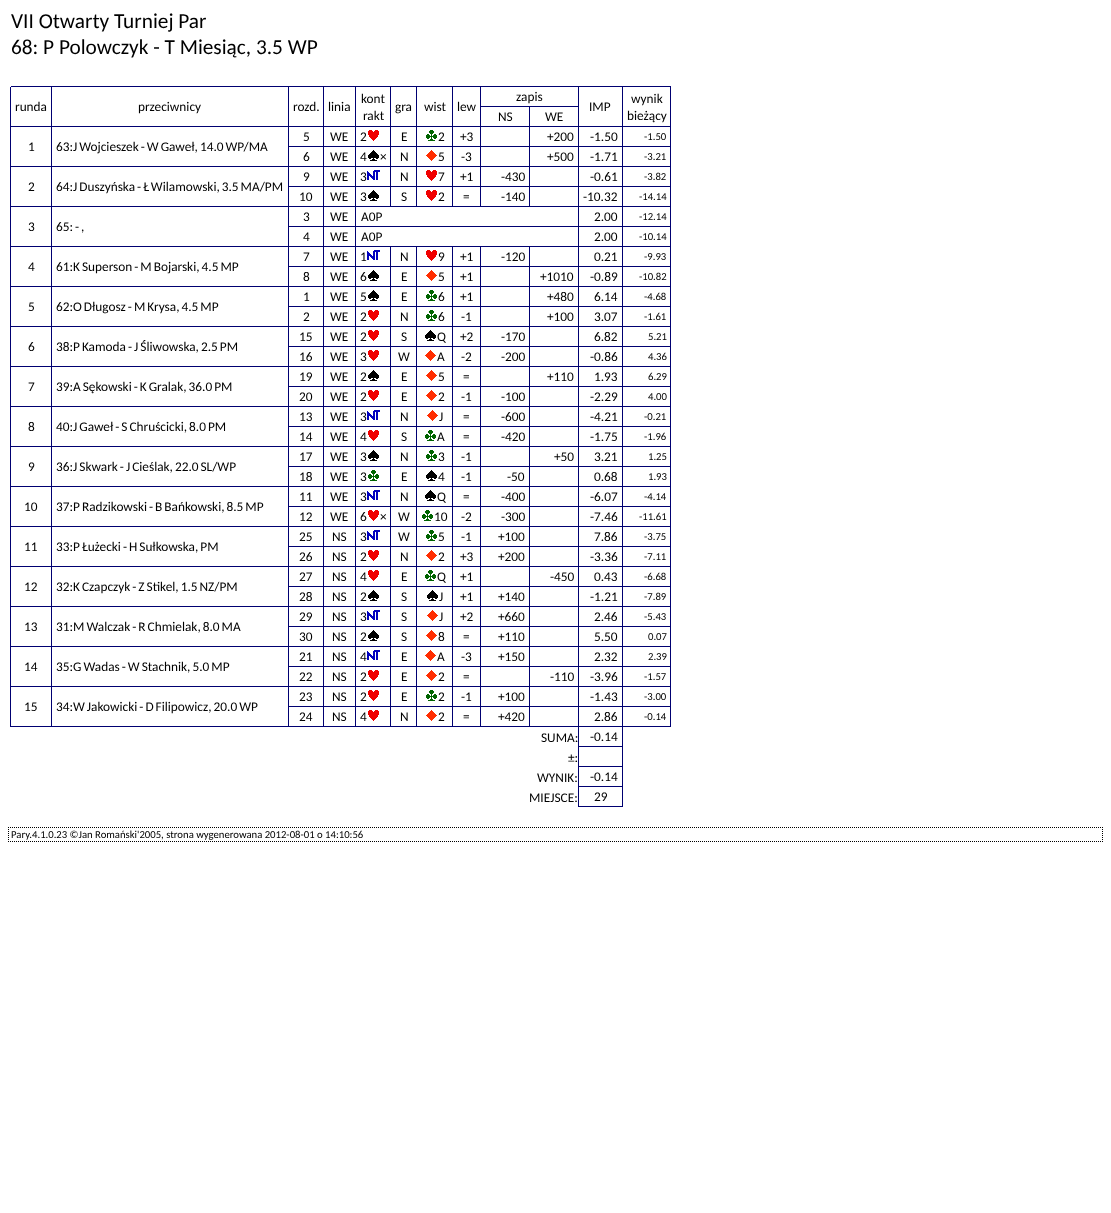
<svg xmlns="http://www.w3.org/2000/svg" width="1111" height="1213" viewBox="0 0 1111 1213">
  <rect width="100%" height="100%" fill="rgb(255,255,255)"/>
  <rect x="11" y="86" width="660" height="1" fill="rgb(0,0,113)"/>
  <g font-family="Carlito" font-size="21.3" fill="rgb(0,0,0)">
    <text>
      <tspan x="11" y="28">VII Otwarty Turniej Par</tspan>
      <tspan x="11" y="54">68: P Polowczyk - T Miesiąc, 3.5 WP</tspan>
    </text>
  </g>
  <rect x="10" y="87" width="1" height="640" fill="rgb(0,0,113)"/>
  <rect x="51" y="87" width="1" height="640" fill="rgb(0,0,113)"/>
  <rect x="11" y="126" width="41" height="1" fill="rgb(0,0,113)"/>
  <text x="15" y="111" font-family="Carlito" font-size="13.3" fill="rgb(0,0,0)">runda</text>
  <rect x="288" y="87" width="1" height="640" fill="rgb(0,0,113)"/>
  <rect x="52" y="126" width="237" height="1" fill="rgb(0,0,113)"/>
  <text x="138" y="111" font-family="Carlito" font-size="13.3" fill="rgb(0,0,0)">przeciwnicy</text>
  <rect x="323" y="87" width="1" height="640" fill="rgb(0,0,113)"/>
  <rect x="289" y="126" width="35" height="1" fill="rgb(0,0,113)"/>
  <text x="293" y="111" font-family="Carlito" font-size="13.3" fill="rgb(0,0,0)">rozd.</text>
  <rect x="355" y="87" width="1" height="640" fill="rgb(0,0,113)"/>
  <rect x="324" y="126" width="32" height="1" fill="rgb(0,0,113)"/>
  <text x="328" y="111" font-family="Carlito" font-size="13.3" fill="rgb(0,0,0)">linia</text>
  <rect x="390" y="87" width="1" height="120" fill="rgb(0,0,113)"/>
  <rect x="356" y="126" width="35" height="1" fill="rgb(0,0,113)"/>
  <g font-family="Carlito" font-size="13.3" fill="rgb(0,0,0)">
    <text x="361" y="103">kont</text>
    <text x="363" y="120">rakt</text>
  </g>
  <rect x="416" y="87" width="1" height="120" fill="rgb(0,0,113)"/>
  <rect x="391" y="126" width="26" height="1" fill="rgb(0,0,113)"/>
  <text x="395" y="111" font-family="Carlito" font-size="13.3" fill="rgb(0,0,0)">gra</text>
  <rect x="452" y="87" width="1" height="120" fill="rgb(0,0,113)"/>
  <rect x="417" y="126" width="36" height="1" fill="rgb(0,0,113)"/>
  <text x="424" y="111" font-family="Carlito" font-size="13.3" fill="rgb(0,0,0)">wist</text>
  <rect x="480" y="87" width="1" height="120" fill="rgb(0,0,113)"/>
  <rect x="453" y="126" width="28" height="1" fill="rgb(0,0,113)"/>
  <text x="457" y="111" font-family="Carlito" font-size="13.3" fill="rgb(0,0,0)">lew</text>
  <rect x="578" y="87" width="1" height="720" fill="rgb(0,0,113)"/>
  <rect x="481" y="106" width="98" height="1" fill="rgb(0,0,113)"/>
  <text x="516" y="101" font-family="Carlito" font-size="13.3" fill="rgb(0,0,0)">zapis</text>
  <rect x="622" y="87" width="1" height="720" fill="rgb(0,0,113)"/>
  <rect x="579" y="126" width="44" height="1" fill="rgb(0,0,113)"/>
  <text x="589" y="111" font-family="Carlito" font-size="13.3" fill="rgb(0,0,0)">IMP</text>
  <rect x="670" y="87" width="1" height="640" fill="rgb(0,0,113)"/>
  <rect x="623" y="126" width="48" height="1" fill="rgb(0,0,113)"/>
  <g font-family="Carlito" font-size="13.3" fill="rgb(0,0,0)">
    <text x="631" y="103">wynik</text>
    <text x="627" y="120">bieżący</text>
  </g>
  <rect x="529" y="107" width="1" height="100" fill="rgb(0,0,113)"/>
  <rect x="481" y="126" width="98" height="1" fill="rgb(0,0,113)"/>
  <g font-family="Carlito" font-size="13.3" fill="rgb(0,0,0)">
    <text x="498" y="121">NS</text>
    <text x="545" y="121">WE</text>
  </g>
  <rect x="289" y="146" width="382" height="1" fill="rgb(0,0,113)"/>
  <g font-family="Carlito" font-size="13.3" fill="rgb(0,0,0)">
    <text x="303" y="141">5</text>
    <text x="330" y="141">WE</text>
    <text x="360" y="141">2</text>
  </g>
  <image x="368" y="130" width="11" height="11" href="pic1.png"/>
  <text x="401" y="141" font-family="Carlito" font-size="13.3" fill="rgb(0,0,0)">E</text>
  <image x="426" y="130" width="11" height="11" href="pic2.png"/>
  <g font-family="Carlito" font-size="13.3" fill="rgb(0,0,0)">
    <text x="438" y="141">2</text>
    <text x="460" y="141">+3</text>
    <text x="547" y="141">+200</text>
    <text x="590" y="141">-1.50</text>
  </g>
  <text x="644" y="140" font-family="Carlito" font-size="10.7" fill="rgb(0,0,0)">-1.50</text>
  <rect x="11" y="166" width="660" height="1" fill="rgb(0,0,113)"/>
  <g font-family="Carlito" font-size="13.3" fill="rgb(0,0,0)">
    <text x="28" y="151">1</text>
    <text x="56" y="151" word-spacing="-1">63:J Wojcieszek - W Gaweł, 14.0 WP/MA</text>
    <text x="303" y="161">6</text>
    <text x="330" y="161">WE</text>
    <text x="360" y="161">4</text>
  </g>
  <image x="368" y="150" width="11" height="11" href="pic3.png"/>
  <g font-family="Carlito" font-size="13.3" fill="rgb(0,0,0)">
    <text x="380" y="161">×</text>
    <text x="400" y="161">N</text>
  </g>
  <image x="426" y="150" width="11" height="11" href="pic4.png"/>
  <g font-family="Carlito" font-size="13.3" fill="rgb(0,0,0)">
    <text x="438" y="161">5</text>
    <text x="461" y="161">-3</text>
    <text x="547" y="161">+500</text>
    <text x="590" y="161">-1.71</text>
  </g>
  <text x="644" y="160" font-family="Carlito" font-size="10.7" fill="rgb(0,0,0)">-3.21</text>
  <rect x="289" y="186" width="382" height="1" fill="rgb(0,0,113)"/>
  <g font-family="Carlito" font-size="13.3" fill="rgb(0,0,0)">
    <text x="303" y="181">9</text>
    <text x="330" y="181">WE</text>
    <text x="360" y="181">3</text>
  </g>
  <image x="367" y="170" width="13" height="10" href="pic5.png"/>
  <text x="400" y="181" font-family="Carlito" font-size="13.3" fill="rgb(0,0,0)">N</text>
  <image x="426" y="170" width="11" height="11" href="pic1.png"/>
  <g font-family="Carlito" font-size="13.3" fill="rgb(0,0,0)">
    <text x="438" y="181">7</text>
    <text x="460" y="181">+1</text>
    <text x="501" y="181">-430</text>
    <text x="590" y="181">-0.61</text>
  </g>
  <text x="644" y="180" font-family="Carlito" font-size="10.7" fill="rgb(0,0,0)">-3.82</text>
  <rect x="11" y="206" width="660" height="1" fill="rgb(0,0,113)"/>
  <g font-family="Carlito" font-size="13.3" fill="rgb(0,0,0)">
    <text x="28" y="191">2</text>
    <text x="56" y="191" word-spacing="-1">64:J Duszyńska - Ł Wilamowski, 3.5 MA/PM</text>
    <text x="299" y="201">10</text>
    <text x="330" y="201">WE</text>
    <text x="360" y="201">3</text>
  </g>
  <image x="368" y="190" width="11" height="11" href="pic3.png"/>
  <text x="401" y="201" font-family="Carlito" font-size="13.3" fill="rgb(0,0,0)">S</text>
  <image x="426" y="190" width="11" height="11" href="pic1.png"/>
  <g font-family="Carlito" font-size="13.3" fill="rgb(0,0,0)">
    <text x="438" y="201">2</text>
    <text x="463" y="201">=</text>
    <text x="501" y="201">-140</text>
    <text x="583" y="201">-10.32</text>
  </g>
  <text x="639" y="200" font-family="Carlito" font-size="10.7" fill="rgb(0,0,0)">-14.14</text>
  <rect x="289" y="226" width="382" height="1" fill="rgb(0,0,113)"/>
  <g font-family="Carlito" font-size="13.3" fill="rgb(0,0,0)">
    <text x="303" y="221">3</text>
    <text x="330" y="221">WE</text>
    <text x="361" y="221">A0P</text>
    <text x="594" y="221">2.00</text>
  </g>
  <text x="639" y="220" font-family="Carlito" font-size="10.7" fill="rgb(0,0,0)">-12.14</text>
  <rect x="11" y="246" width="660" height="1" fill="rgb(0,0,113)"/>
  <g font-family="Carlito" font-size="13.3" fill="rgb(0,0,0)">
    <text x="28" y="231">3</text>
    <text x="56" y="231" word-spacing="-1">65: - ,</text>
    <text x="303" y="241">4</text>
    <text x="330" y="241">WE</text>
    <text x="361" y="241">A0P</text>
    <text x="594" y="241">2.00</text>
  </g>
  <text x="639" y="240" font-family="Carlito" font-size="10.7" fill="rgb(0,0,0)">-10.14</text>
  <rect x="289" y="266" width="67" height="1" fill="rgb(0,0,113)"/>
  <g font-family="Carlito" font-size="13.3" fill="rgb(0,0,0)">
    <text x="303" y="261">7</text>
    <text x="330" y="261">WE</text>
  </g>
  <rect x="390" y="247" width="1" height="480" fill="rgb(0,0,113)"/>
  <rect x="356" y="266" width="35" height="1" fill="rgb(0,0,113)"/>
  <text x="360" y="261" font-family="Carlito" font-size="13.3" fill="rgb(0,0,0)">1</text>
  <image x="367" y="250" width="13" height="10" href="pic5.png"/>
  <rect x="416" y="247" width="1" height="480" fill="rgb(0,0,113)"/>
  <rect x="391" y="266" width="26" height="1" fill="rgb(0,0,113)"/>
  <text x="400" y="261" font-family="Carlito" font-size="13.3" fill="rgb(0,0,0)">N</text>
  <rect x="452" y="247" width="1" height="480" fill="rgb(0,0,113)"/>
  <rect x="417" y="266" width="36" height="1" fill="rgb(0,0,113)"/>
  <image x="426" y="250" width="11" height="11" href="pic1.png"/>
  <text x="438" y="261" font-family="Carlito" font-size="13.3" fill="rgb(0,0,0)">9</text>
  <rect x="480" y="247" width="1" height="480" fill="rgb(0,0,113)"/>
  <rect x="453" y="266" width="28" height="1" fill="rgb(0,0,113)"/>
  <text x="460" y="261" font-family="Carlito" font-size="13.3" fill="rgb(0,0,0)">+1</text>
  <rect x="529" y="247" width="1" height="480" fill="rgb(0,0,113)"/>
  <rect x="481" y="266" width="190" height="1" fill="rgb(0,0,113)"/>
  <g font-family="Carlito" font-size="13.3" fill="rgb(0,0,0)">
    <text x="501" y="261">-120</text>
    <text x="594" y="261">0.21</text>
  </g>
  <text x="644" y="260" font-family="Carlito" font-size="10.7" fill="rgb(0,0,0)">-9.93</text>
  <rect x="11" y="286" width="345" height="1" fill="rgb(0,0,113)"/>
  <g font-family="Carlito" font-size="13.3" fill="rgb(0,0,0)">
    <text x="28" y="271">4</text>
    <text x="56" y="271" word-spacing="-1">61:K Superson - M Bojarski, 4.5 MP</text>
    <text x="303" y="281">8</text>
    <text x="330" y="281">WE</text>
  </g>
  <rect x="356" y="286" width="315" height="1" fill="rgb(0,0,113)"/>
  <text x="360" y="281" font-family="Carlito" font-size="13.3" fill="rgb(0,0,0)">6</text>
  <image x="368" y="270" width="11" height="11" href="pic3.png"/>
  <text x="401" y="281" font-family="Carlito" font-size="13.3" fill="rgb(0,0,0)">E</text>
  <image x="426" y="270" width="11" height="11" href="pic4.png"/>
  <g font-family="Carlito" font-size="13.3" fill="rgb(0,0,0)">
    <text x="438" y="281">5</text>
    <text x="460" y="281">+1</text>
    <text x="540" y="281">+1010</text>
    <text x="590" y="281">-0.89</text>
  </g>
  <text x="639" y="280" font-family="Carlito" font-size="10.7" fill="rgb(0,0,0)">-10.82</text>
  <rect x="289" y="306" width="382" height="1" fill="rgb(0,0,113)"/>
  <g font-family="Carlito" font-size="13.3" fill="rgb(0,0,0)">
    <text x="303" y="301">1</text>
    <text x="330" y="301">WE</text>
    <text x="360" y="301">5</text>
  </g>
  <image x="368" y="290" width="11" height="11" href="pic3.png"/>
  <text x="401" y="301" font-family="Carlito" font-size="13.3" fill="rgb(0,0,0)">E</text>
  <image x="426" y="290" width="11" height="11" href="pic2.png"/>
  <g font-family="Carlito" font-size="13.3" fill="rgb(0,0,0)">
    <text x="438" y="301">6</text>
    <text x="460" y="301">+1</text>
    <text x="547" y="301">+480</text>
    <text x="594" y="301">6.14</text>
  </g>
  <text x="644" y="300" font-family="Carlito" font-size="10.7" fill="rgb(0,0,0)">-4.68</text>
  <rect x="11" y="326" width="660" height="1" fill="rgb(0,0,113)"/>
  <g font-family="Carlito" font-size="13.3" fill="rgb(0,0,0)">
    <text x="28" y="311">5</text>
    <text x="56" y="311" word-spacing="-1">62:O Długosz - M Krysa, 4.5 MP</text>
    <text x="303" y="321">2</text>
    <text x="330" y="321">WE</text>
    <text x="360" y="321">2</text>
  </g>
  <image x="368" y="310" width="11" height="11" href="pic1.png"/>
  <text x="400" y="321" font-family="Carlito" font-size="13.3" fill="rgb(0,0,0)">N</text>
  <image x="426" y="310" width="11" height="11" href="pic2.png"/>
  <g font-family="Carlito" font-size="13.3" fill="rgb(0,0,0)">
    <text x="438" y="321">6</text>
    <text x="461" y="321">-1</text>
    <text x="547" y="321">+100</text>
    <text x="594" y="321">3.07</text>
  </g>
  <text x="644" y="320" font-family="Carlito" font-size="10.7" fill="rgb(0,0,0)">-1.61</text>
  <rect x="289" y="346" width="382" height="1" fill="rgb(0,0,113)"/>
  <g font-family="Carlito" font-size="13.3" fill="rgb(0,0,0)">
    <text x="299" y="341">15</text>
    <text x="330" y="341">WE</text>
    <text x="360" y="341">2</text>
  </g>
  <image x="368" y="330" width="11" height="11" href="pic1.png"/>
  <text x="401" y="341" font-family="Carlito" font-size="13.3" fill="rgb(0,0,0)">S</text>
  <image x="425" y="330" width="11" height="11" href="pic3.png"/>
  <g font-family="Carlito" font-size="13.3" fill="rgb(0,0,0)">
    <text x="437" y="341">Q</text>
    <text x="460" y="341">+2</text>
    <text x="501" y="341">-170</text>
    <text x="594" y="341">6.82</text>
  </g>
  <text x="648" y="340" font-family="Carlito" font-size="10.7" fill="rgb(0,0,0)">5.21</text>
  <rect x="11" y="366" width="660" height="1" fill="rgb(0,0,113)"/>
  <g font-family="Carlito" font-size="13.3" fill="rgb(0,0,0)">
    <text x="28" y="351">6</text>
    <text x="56" y="351" word-spacing="-1">38:P Kamoda - J Śliwowska, 2.5 PM</text>
    <text x="299" y="361">16</text>
    <text x="330" y="361">WE</text>
    <text x="360" y="361">3</text>
  </g>
  <image x="368" y="350" width="11" height="11" href="pic1.png"/>
  <text x="398" y="361" font-family="Carlito" font-size="13.3" fill="rgb(0,0,0)">W</text>
  <image x="425" y="350" width="11" height="11" href="pic4.png"/>
  <g font-family="Carlito" font-size="13.3" fill="rgb(0,0,0)">
    <text x="437" y="361">A</text>
    <text x="461" y="361">-2</text>
    <text x="501" y="361">-200</text>
    <text x="590" y="361">-0.86</text>
  </g>
  <text x="648" y="360" font-family="Carlito" font-size="10.7" fill="rgb(0,0,0)">4.36</text>
  <rect x="289" y="386" width="382" height="1" fill="rgb(0,0,113)"/>
  <g font-family="Carlito" font-size="13.3" fill="rgb(0,0,0)">
    <text x="299" y="381">19</text>
    <text x="330" y="381">WE</text>
    <text x="360" y="381">2</text>
  </g>
  <image x="368" y="370" width="11" height="11" href="pic3.png"/>
  <text x="401" y="381" font-family="Carlito" font-size="13.3" fill="rgb(0,0,0)">E</text>
  <image x="426" y="370" width="11" height="11" href="pic4.png"/>
  <g font-family="Carlito" font-size="13.3" fill="rgb(0,0,0)">
    <text x="438" y="381">5</text>
    <text x="463" y="381">=</text>
    <text x="547" y="381">+110</text>
    <text x="594" y="381">1.93</text>
  </g>
  <text x="648" y="380" font-family="Carlito" font-size="10.7" fill="rgb(0,0,0)">6.29</text>
  <rect x="11" y="406" width="660" height="1" fill="rgb(0,0,113)"/>
  <g font-family="Carlito" font-size="13.3" fill="rgb(0,0,0)">
    <text x="28" y="391">7</text>
    <text x="56" y="391" word-spacing="-1">39:A Sękowski - K Gralak, 36.0 PM</text>
    <text x="299" y="401">20</text>
    <text x="330" y="401">WE</text>
    <text x="360" y="401">2</text>
  </g>
  <image x="368" y="390" width="11" height="11" href="pic1.png"/>
  <text x="401" y="401" font-family="Carlito" font-size="13.3" fill="rgb(0,0,0)">E</text>
  <image x="426" y="390" width="11" height="11" href="pic4.png"/>
  <g font-family="Carlito" font-size="13.3" fill="rgb(0,0,0)">
    <text x="438" y="401">2</text>
    <text x="461" y="401">-1</text>
    <text x="501" y="401">-100</text>
    <text x="590" y="401">-2.29</text>
  </g>
  <text x="648" y="400" font-family="Carlito" font-size="10.7" fill="rgb(0,0,0)">4.00</text>
  <rect x="289" y="426" width="382" height="1" fill="rgb(0,0,113)"/>
  <g font-family="Carlito" font-size="13.3" fill="rgb(0,0,0)">
    <text x="299" y="421">13</text>
    <text x="330" y="421">WE</text>
    <text x="360" y="421">3</text>
  </g>
  <image x="367" y="410" width="13" height="10" href="pic5.png"/>
  <text x="400" y="421" font-family="Carlito" font-size="13.3" fill="rgb(0,0,0)">N</text>
  <image x="427" y="410" width="11" height="11" href="pic4.png"/>
  <g font-family="Carlito" font-size="13.3" fill="rgb(0,0,0)">
    <text x="439" y="421">J</text>
    <text x="463" y="421">=</text>
    <text x="501" y="421">-600</text>
    <text x="590" y="421">-4.21</text>
  </g>
  <text x="644" y="420" font-family="Carlito" font-size="10.7" fill="rgb(0,0,0)">-0.21</text>
  <rect x="11" y="446" width="660" height="1" fill="rgb(0,0,113)"/>
  <g font-family="Carlito" font-size="13.3" fill="rgb(0,0,0)">
    <text x="28" y="431">8</text>
    <text x="56" y="431" word-spacing="-1">40:J Gaweł - S Chruścicki, 8.0 PM</text>
    <text x="299" y="441">14</text>
    <text x="330" y="441">WE</text>
    <text x="360" y="441">4</text>
  </g>
  <image x="368" y="430" width="11" height="11" href="pic1.png"/>
  <text x="401" y="441" font-family="Carlito" font-size="13.3" fill="rgb(0,0,0)">S</text>
  <image x="425" y="430" width="11" height="11" href="pic2.png"/>
  <g font-family="Carlito" font-size="13.3" fill="rgb(0,0,0)">
    <text x="437" y="441">A</text>
    <text x="463" y="441">=</text>
    <text x="501" y="441">-420</text>
    <text x="590" y="441">-1.75</text>
  </g>
  <text x="644" y="440" font-family="Carlito" font-size="10.7" fill="rgb(0,0,0)">-1.96</text>
  <rect x="289" y="466" width="382" height="1" fill="rgb(0,0,113)"/>
  <g font-family="Carlito" font-size="13.3" fill="rgb(0,0,0)">
    <text x="299" y="461">17</text>
    <text x="330" y="461">WE</text>
    <text x="360" y="461">3</text>
  </g>
  <image x="368" y="450" width="11" height="11" href="pic3.png"/>
  <text x="400" y="461" font-family="Carlito" font-size="13.3" fill="rgb(0,0,0)">N</text>
  <image x="426" y="450" width="11" height="11" href="pic2.png"/>
  <g font-family="Carlito" font-size="13.3" fill="rgb(0,0,0)">
    <text x="438" y="461">3</text>
    <text x="461" y="461">-1</text>
    <text x="554" y="461">+50</text>
    <text x="594" y="461">3.21</text>
  </g>
  <text x="648" y="460" font-family="Carlito" font-size="10.7" fill="rgb(0,0,0)">1.25</text>
  <rect x="11" y="486" width="660" height="1" fill="rgb(0,0,113)"/>
  <g font-family="Carlito" font-size="13.3" fill="rgb(0,0,0)">
    <text x="28" y="471">9</text>
    <text x="56" y="471" word-spacing="-1">36:J Skwark - J Cieślak, 22.0 SL/WP</text>
    <text x="299" y="481">18</text>
    <text x="330" y="481">WE</text>
    <text x="360" y="481">3</text>
  </g>
  <image x="368" y="470" width="11" height="11" href="pic2.png"/>
  <text x="401" y="481" font-family="Carlito" font-size="13.3" fill="rgb(0,0,0)">E</text>
  <image x="426" y="470" width="11" height="11" href="pic3.png"/>
  <g font-family="Carlito" font-size="13.3" fill="rgb(0,0,0)">
    <text x="438" y="481">4</text>
    <text x="461" y="481">-1</text>
    <text x="507" y="481">-50</text>
    <text x="594" y="481">0.68</text>
  </g>
  <text x="648" y="480" font-family="Carlito" font-size="10.7" fill="rgb(0,0,0)">1.93</text>
  <rect x="289" y="506" width="382" height="1" fill="rgb(0,0,113)"/>
  <g font-family="Carlito" font-size="13.3" fill="rgb(0,0,0)">
    <text x="299" y="501">11</text>
    <text x="330" y="501">WE</text>
    <text x="360" y="501">3</text>
  </g>
  <image x="367" y="490" width="13" height="10" href="pic5.png"/>
  <text x="400" y="501" font-family="Carlito" font-size="13.3" fill="rgb(0,0,0)">N</text>
  <image x="425" y="490" width="11" height="11" href="pic3.png"/>
  <g font-family="Carlito" font-size="13.3" fill="rgb(0,0,0)">
    <text x="437" y="501">Q</text>
    <text x="463" y="501">=</text>
    <text x="501" y="501">-400</text>
    <text x="590" y="501">-6.07</text>
  </g>
  <text x="644" y="500" font-family="Carlito" font-size="10.7" fill="rgb(0,0,0)">-4.14</text>
  <rect x="11" y="526" width="660" height="1" fill="rgb(0,0,113)"/>
  <g font-family="Carlito" font-size="13.3" fill="rgb(0,0,0)">
    <text x="24" y="511">10</text>
    <text x="56" y="511" word-spacing="-1">37:P Radzikowski - B Bańkowski, 8.5 MP</text>
    <text x="299" y="521">12</text>
    <text x="330" y="521">WE</text>
    <text x="360" y="521">6</text>
  </g>
  <image x="368" y="510" width="11" height="11" href="pic1.png"/>
  <g font-family="Carlito" font-size="13.3" fill="rgb(0,0,0)">
    <text x="380" y="521">×</text>
    <text x="398" y="521">W</text>
  </g>
  <image x="422" y="510" width="11" height="11" href="pic2.png"/>
  <g font-family="Carlito" font-size="13.3" fill="rgb(0,0,0)">
    <text x="434" y="521">10</text>
    <text x="461" y="521">-2</text>
    <text x="501" y="521">-300</text>
    <text x="590" y="521">-7.46</text>
  </g>
  <text x="639" y="520" font-family="Carlito" font-size="10.7" fill="rgb(0,0,0)">-11.61</text>
  <rect x="289" y="546" width="382" height="1" fill="rgb(0,0,113)"/>
  <g font-family="Carlito" font-size="13.3" fill="rgb(0,0,0)">
    <text x="299" y="541">25</text>
    <text x="332" y="541">NS</text>
    <text x="360" y="541">3</text>
  </g>
  <image x="367" y="530" width="13" height="10" href="pic5.png"/>
  <text x="398" y="541" font-family="Carlito" font-size="13.3" fill="rgb(0,0,0)">W</text>
  <image x="426" y="530" width="11" height="11" href="pic2.png"/>
  <g font-family="Carlito" font-size="13.3" fill="rgb(0,0,0)">
    <text x="438" y="541">5</text>
    <text x="461" y="541">-1</text>
    <text x="498" y="541">+100</text>
    <text x="594" y="541">7.86</text>
  </g>
  <text x="644" y="540" font-family="Carlito" font-size="10.7" fill="rgb(0,0,0)">-3.75</text>
  <rect x="11" y="566" width="660" height="1" fill="rgb(0,0,113)"/>
  <g font-family="Carlito" font-size="13.3" fill="rgb(0,0,0)">
    <text x="24" y="551">11</text>
    <text x="56" y="551" word-spacing="-1">33:P Łużecki - H Sułkowska, PM</text>
    <text x="299" y="561">26</text>
    <text x="332" y="561">NS</text>
    <text x="360" y="561">2</text>
  </g>
  <image x="368" y="550" width="11" height="11" href="pic1.png"/>
  <text x="400" y="561" font-family="Carlito" font-size="13.3" fill="rgb(0,0,0)">N</text>
  <image x="426" y="550" width="11" height="11" href="pic4.png"/>
  <g font-family="Carlito" font-size="13.3" fill="rgb(0,0,0)">
    <text x="438" y="561">2</text>
    <text x="460" y="561">+3</text>
    <text x="498" y="561">+200</text>
    <text x="590" y="561">-3.36</text>
  </g>
  <text x="644" y="560" font-family="Carlito" font-size="10.7" fill="rgb(0,0,0)">-7.11</text>
  <rect x="289" y="586" width="382" height="1" fill="rgb(0,0,113)"/>
  <g font-family="Carlito" font-size="13.3" fill="rgb(0,0,0)">
    <text x="299" y="581">27</text>
    <text x="332" y="581">NS</text>
    <text x="360" y="581">4</text>
  </g>
  <image x="368" y="570" width="11" height="11" href="pic1.png"/>
  <text x="401" y="581" font-family="Carlito" font-size="13.3" fill="rgb(0,0,0)">E</text>
  <image x="425" y="570" width="11" height="11" href="pic2.png"/>
  <g font-family="Carlito" font-size="13.3" fill="rgb(0,0,0)">
    <text x="437" y="581">Q</text>
    <text x="460" y="581">+1</text>
    <text x="550" y="581">-450</text>
    <text x="594" y="581">0.43</text>
  </g>
  <text x="644" y="580" font-family="Carlito" font-size="10.7" fill="rgb(0,0,0)">-6.68</text>
  <rect x="11" y="606" width="660" height="1" fill="rgb(0,0,113)"/>
  <g font-family="Carlito" font-size="13.3" fill="rgb(0,0,0)">
    <text x="24" y="591">12</text>
    <text x="56" y="591" word-spacing="-1">32:K Czapczyk - Z Stikel, 1.5 NZ/PM</text>
    <text x="299" y="601">28</text>
    <text x="332" y="601">NS</text>
    <text x="360" y="601">2</text>
  </g>
  <image x="368" y="590" width="11" height="11" href="pic3.png"/>
  <text x="401" y="601" font-family="Carlito" font-size="13.3" fill="rgb(0,0,0)">S</text>
  <image x="427" y="590" width="11" height="11" href="pic3.png"/>
  <g font-family="Carlito" font-size="13.3" fill="rgb(0,0,0)">
    <text x="439" y="601">J</text>
    <text x="460" y="601">+1</text>
    <text x="498" y="601">+140</text>
    <text x="590" y="601">-1.21</text>
  </g>
  <text x="644" y="600" font-family="Carlito" font-size="10.7" fill="rgb(0,0,0)">-7.89</text>
  <rect x="289" y="626" width="382" height="1" fill="rgb(0,0,113)"/>
  <g font-family="Carlito" font-size="13.3" fill="rgb(0,0,0)">
    <text x="299" y="621">29</text>
    <text x="332" y="621">NS</text>
    <text x="360" y="621">3</text>
  </g>
  <image x="367" y="610" width="13" height="10" href="pic5.png"/>
  <text x="401" y="621" font-family="Carlito" font-size="13.3" fill="rgb(0,0,0)">S</text>
  <image x="427" y="610" width="11" height="11" href="pic4.png"/>
  <g font-family="Carlito" font-size="13.3" fill="rgb(0,0,0)">
    <text x="439" y="621">J</text>
    <text x="460" y="621">+2</text>
    <text x="498" y="621">+660</text>
    <text x="594" y="621">2.46</text>
  </g>
  <text x="644" y="620" font-family="Carlito" font-size="10.7" fill="rgb(0,0,0)">-5.43</text>
  <rect x="11" y="646" width="660" height="1" fill="rgb(0,0,113)"/>
  <g font-family="Carlito" font-size="13.3" fill="rgb(0,0,0)">
    <text x="24" y="631">13</text>
    <text x="56" y="631" word-spacing="-1">31:M Walczak - R Chmielak, 8.0 MA</text>
    <text x="299" y="641">30</text>
    <text x="332" y="641">NS</text>
    <text x="360" y="641">2</text>
  </g>
  <image x="368" y="630" width="11" height="11" href="pic3.png"/>
  <text x="401" y="641" font-family="Carlito" font-size="13.3" fill="rgb(0,0,0)">S</text>
  <image x="426" y="630" width="11" height="11" href="pic4.png"/>
  <g font-family="Carlito" font-size="13.3" fill="rgb(0,0,0)">
    <text x="438" y="641">8</text>
    <text x="463" y="641">=</text>
    <text x="498" y="641">+110</text>
    <text x="594" y="641">5.50</text>
  </g>
  <text x="648" y="640" font-family="Carlito" font-size="10.7" fill="rgb(0,0,0)">0.07</text>
  <rect x="289" y="666" width="382" height="1" fill="rgb(0,0,113)"/>
  <g font-family="Carlito" font-size="13.3" fill="rgb(0,0,0)">
    <text x="299" y="661">21</text>
    <text x="332" y="661">NS</text>
    <text x="360" y="661">4</text>
  </g>
  <image x="367" y="650" width="13" height="10" href="pic5.png"/>
  <text x="401" y="661" font-family="Carlito" font-size="13.3" fill="rgb(0,0,0)">E</text>
  <image x="425" y="650" width="11" height="11" href="pic4.png"/>
  <g font-family="Carlito" font-size="13.3" fill="rgb(0,0,0)">
    <text x="437" y="661">A</text>
    <text x="461" y="661">-3</text>
    <text x="498" y="661">+150</text>
    <text x="594" y="661">2.32</text>
  </g>
  <text x="648" y="660" font-family="Carlito" font-size="10.7" fill="rgb(0,0,0)">2.39</text>
  <rect x="11" y="686" width="660" height="1" fill="rgb(0,0,113)"/>
  <g font-family="Carlito" font-size="13.3" fill="rgb(0,0,0)">
    <text x="24" y="671">14</text>
    <text x="56" y="671" word-spacing="-1">35:G Wadas - W Stachnik, 5.0 MP</text>
    <text x="299" y="681">22</text>
    <text x="332" y="681">NS</text>
    <text x="360" y="681">2</text>
  </g>
  <image x="368" y="670" width="11" height="11" href="pic1.png"/>
  <text x="401" y="681" font-family="Carlito" font-size="13.3" fill="rgb(0,0,0)">E</text>
  <image x="426" y="670" width="11" height="11" href="pic4.png"/>
  <g font-family="Carlito" font-size="13.3" fill="rgb(0,0,0)">
    <text x="438" y="681">2</text>
    <text x="463" y="681">=</text>
    <text x="550" y="681">-110</text>
    <text x="590" y="681">-3.96</text>
  </g>
  <text x="644" y="680" font-family="Carlito" font-size="10.7" fill="rgb(0,0,0)">-1.57</text>
  <rect x="289" y="706" width="382" height="1" fill="rgb(0,0,113)"/>
  <g font-family="Carlito" font-size="13.3" fill="rgb(0,0,0)">
    <text x="299" y="701">23</text>
    <text x="332" y="701">NS</text>
    <text x="360" y="701">2</text>
  </g>
  <image x="368" y="690" width="11" height="11" href="pic1.png"/>
  <text x="401" y="701" font-family="Carlito" font-size="13.3" fill="rgb(0,0,0)">E</text>
  <image x="426" y="690" width="11" height="11" href="pic2.png"/>
  <g font-family="Carlito" font-size="13.3" fill="rgb(0,0,0)">
    <text x="438" y="701">2</text>
    <text x="461" y="701">-1</text>
    <text x="498" y="701">+100</text>
    <text x="590" y="701">-1.43</text>
  </g>
  <text x="644" y="700" font-family="Carlito" font-size="10.7" fill="rgb(0,0,0)">-3.00</text>
  <rect x="11" y="726" width="660" height="1" fill="rgb(0,0,113)"/>
  <g font-family="Carlito" font-size="13.3" fill="rgb(0,0,0)">
    <text x="24" y="711">15</text>
    <text x="56" y="711" word-spacing="-1">34:W Jakowicki - D Filipowicz, 20.0 WP</text>
    <text x="299" y="721">24</text>
    <text x="332" y="721">NS</text>
    <text x="360" y="721">4</text>
  </g>
  <image x="368" y="710" width="11" height="11" href="pic1.png"/>
  <text x="400" y="721" font-family="Carlito" font-size="13.3" fill="rgb(0,0,0)">N</text>
  <image x="426" y="710" width="11" height="11" href="pic4.png"/>
  <g font-family="Carlito" font-size="13.3" fill="rgb(0,0,0)">
    <text x="438" y="721">2</text>
    <text x="463" y="721">=</text>
    <text x="498" y="721">+420</text>
    <text x="594" y="721">2.86</text>
  </g>
  <text x="644" y="720" font-family="Carlito" font-size="10.7" fill="rgb(0,0,0)">-0.14</text>
  <text x="541" y="742" font-family="Carlito" font-size="13.3" fill="rgb(0,0,0)">SUMA:</text>
  <rect x="579" y="746" width="44" height="1" fill="rgb(0,0,113)"/>
  <g font-family="Carlito" font-size="13.3" fill="rgb(0,0,0)">
    <text x="590" y="741">-0.14</text>
    <text x="568" y="762">±:</text>
  </g>
  <rect x="579" y="766" width="44" height="1" fill="rgb(0,0,113)"/>
  <text x="537" y="782" font-family="Carlito" font-size="13.3" fill="rgb(0,0,0)">WYNIK:</text>
  <rect x="579" y="786" width="44" height="1" fill="rgb(0,0,113)"/>
  <g font-family="Carlito" font-size="13.3" fill="rgb(0,0,0)">
    <text x="590" y="781">-0.14</text>
    <text x="529" y="802">MIEJSCE:</text>
  </g>
  <rect x="579" y="806" width="44" height="1" fill="rgb(0,0,113)"/>
  <text x="594" y="801" font-family="Carlito" font-size="13.3" fill="rgb(0,0,0)">29</text>
  <path d="M8 827.5H1103" fill="none" stroke="rgb(0,0,0)" stroke-dasharray="1 1"/>
  <path d="M1102.5 827V842" fill="none" stroke="rgb(0,0,0)" stroke-dasharray="1 1"/>
  <path d="M8 841.5H1103" fill="none" stroke="rgb(0,0,0)" stroke-dasharray="1 1"/>
  <path d="M8.5 827V842" fill="none" stroke="rgb(0,0,0)" stroke-dasharray="1 1"/>
  <text x="11" y="838" font-family="Carlito" font-size="10.7" fill="rgb(0,0,0)">Pary.4.1.0.23 ©Jan Romański'2005, strona wygenerowana 2012-08-01 o 14:10:56</text>
</svg>
